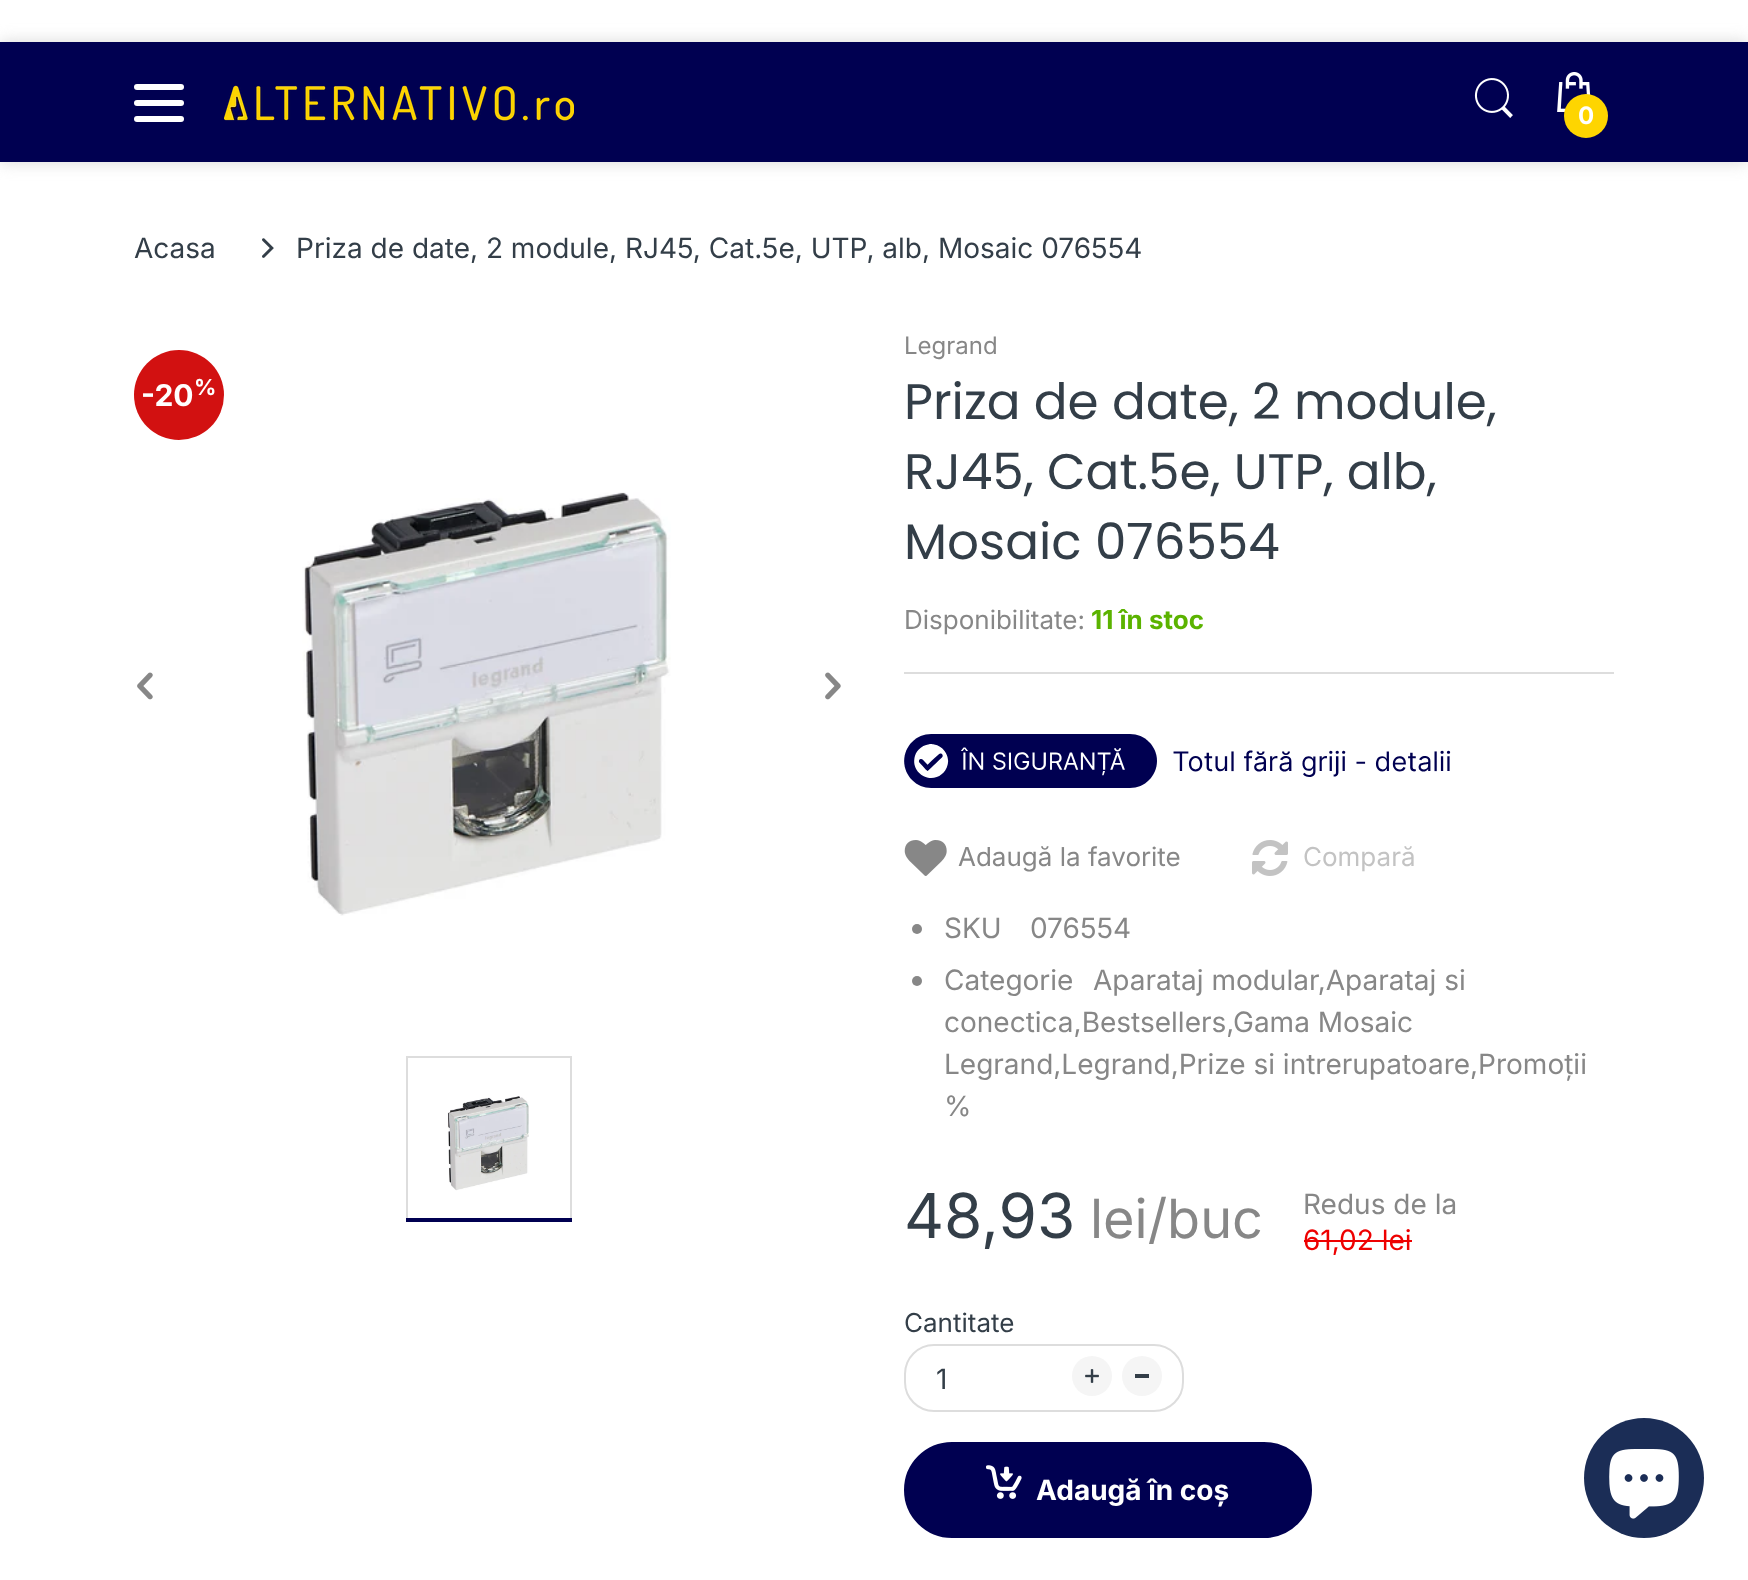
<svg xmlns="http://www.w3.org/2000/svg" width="1748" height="1580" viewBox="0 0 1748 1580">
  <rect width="100%" height="100%" fill="rgb(255,255,255)"/>
  <rect x="0" y="42" width="1748" height="120" fill="rgba(201,201,201,0.75)" filter="blur(8px)"/>
  <rect x="0" y="42" width="1748" height="120" fill="rgb(0,0,81)"/>
  <rect x="134" y="84" width="50" height="6" rx="3" fill="rgb(255,255,255)"/>
  <rect x="134" y="100" width="50" height="6" rx="3" fill="rgb(255,255,255)"/>
  <rect x="134" y="116" width="50" height="6" rx="3" fill="rgb(255,255,255)"/>
  <image x="224" y="85" width="350" height="36" href="pic1.png"/>
  <image x="1474" y="78" width="39" height="40" href="pic2.png"/>
  <image x="1557" y="72" width="34" height="40" href="pic3.png"/>
  <circle cx="1586" cy="116" r="22" fill="rgb(254,213,0)"/>
  <text x="1578" y="124" font-family="Inter" font-size="24" font-weight="bold" fill="rgb(255,255,255)">0</text>
  <text x="134" y="258" font-family="Inter" font-size="28" fill="rgb(51,62,72)">Acasa</text>
  <image x="262" y="238" width="12" height="20" href="pic4.png"/>
  <text x="296" y="258" font-family="Inter" font-size="28" fill="rgb(51,62,72)">Priza de date, 2 module, RJ45, Cat.5e, UTP, alb, Mosaic 076554</text>
  <circle cx="179" cy="395" r="45" fill="rgb(210,17,17)"/>
  <text x="141" y="406" font-family="Inter" font-size="30" font-weight="bold" fill="rgb(255,255,255)">-20</text>
  <text x="194" y="395" font-family="Inter" font-size="22" font-weight="bold" fill="rgb(255,255,255)">%</text>
  <image x="302" y="492" width="369" height="424" href="pic5.png"/>
  <image x="137" y="672" width="16" height="28" href="pic6.png"/>
  <image x="825" y="672" width="16" height="28" href="pic7.png"/>
  <rect x="407" y="1057" width="164" height="164" fill="none" stroke="rgb(221,221,221)" stroke-width="2"/>
  <image x="447" y="1096" width="82" height="95" href="pic8.png"/>
  <rect x="406" y="1218" width="166" height="4" fill="rgb(0,0,81)"/>
  <text x="904" y="354" font-family="Inter" font-size="24" fill="rgb(135,135,135)">Legrand</text>
  <g font-family="Poppins" font-size="50" fill="rgb(51,62,72)">
    <text>
      <tspan x="904" y="419">Priza de date, 2 module,</tspan>
      <tspan x="904" y="489">RJ45, Cat.5e, UTP, alb,</tspan>
      <tspan x="904" y="559">Mosaic 076554</tspan>
    </text>
  </g>
  <rect x="904" y="672" width="710" height="2" fill="rgb(221,221,221)"/>
  <text x="904" y="629" font-family="Inter" font-size="26" fill="rgb(135,135,135)">Disponibilitate:</text>
  <text x="1091" y="629" font-family="Inter" font-size="26" font-weight="bold" fill="rgb(91,179,0)">11 în stoc</text>
  <image x="904" y="734" width="547" height="54" href="pic9.png"/>
  <image x="904" y="840" width="43" height="36" href="pic10.png"/>
  <text x="958" y="866" font-family="Inter" font-size="26" fill="rgb(135,135,135)">Adaugă la favorite</text>
  <image x="1252" y="840" width="36" height="36" href="pic11.png"/>
  <text x="1303" y="866" font-family="Inter" font-size="26" fill="rgb(195,195,195)">Compară</text>
  <circle cx="917" cy="929" r="5" fill="rgb(135,135,135)"/>
  <g font-family="Inter" font-size="28" fill="rgb(135,135,135)">
    <text x="944" y="938">SKU</text>
    <text x="1030" y="938">076554</text>
  </g>
  <circle cx="917" cy="981" r="5" fill="rgb(135,135,135)"/>
  <g font-family="Inter" font-size="28" fill="rgb(135,135,135)">
    <text x="944" y="990">Categorie</text>
    <text x="1093" y="990">Aparataj modular,Aparataj si</text>
    <text x="944" y="1032">conectica,Bestsellers,</text>
    <text x="1233" y="1032">Gama Mosaic</text>
    <text>
      <tspan x="944" y="1074">Legrand,Legrand,Prize si intrerupatoare,Promoții</tspan>
      <tspan x="944" y="1116">%</tspan>
    </text>
  </g>
  <text x="904" y="1238" font-family="Inter" font-size="62" fill="rgb(51,62,72)">48,93</text>
  <text x="1090" y="1238" font-family="Inter" font-size="54" fill="rgb(135,135,135)">lei/buc</text>
  <text x="1303" y="1214" font-family="Inter" font-size="28" fill="rgb(135,135,135)">Redus de la</text>
  <text x="1303" y="1250" font-family="Inter" font-size="28" fill="rgb(238,0,0)">61,02 lei</text>
  <rect x="1304" y="1240" width="108" height="2" fill="rgb(238,0,0)"/>
  <text x="904" y="1332" font-family="Inter" font-size="26" fill="rgb(51,62,72)">Cantitate</text>
  <rect x="905" y="1345" width="278" height="66" rx="29" fill="none" stroke="rgb(221,221,221)" stroke-width="2"/>
  <text x="936" y="1389" font-family="Inter" font-size="28" fill="rgb(51,62,72)">1</text>
  <circle cx="1092" cy="1376" r="20" fill="rgb(245,245,245)"/>
  <image x="1085" y="1369" width="14" height="14" href="pic12.png"/>
  <circle cx="1142" cy="1376" r="20" fill="rgb(245,245,245)"/>
  <rect x="1135" y="1374" width="14" height="4" fill="rgb(51,62,72)"/>
  <rect x="905" y="1443" width="406" height="94" rx="47" fill="rgb(0,0,81)" stroke="rgb(0,0,81)" stroke-width="2"/>
  <image x="986" y="1465" width="36" height="34" href="pic13.png"/>
  <text x="1036" y="1500" font-family="Inter" font-size="28" font-weight="bold" fill="rgb(255,255,255)">Adaugă în coș</text>
  <circle cx="1644" cy="1478" r="60" fill="rgb(27,45,86)"/>
  <image x="1609" y="1449" width="70" height="70" href="pic14.png"/>
</svg>
